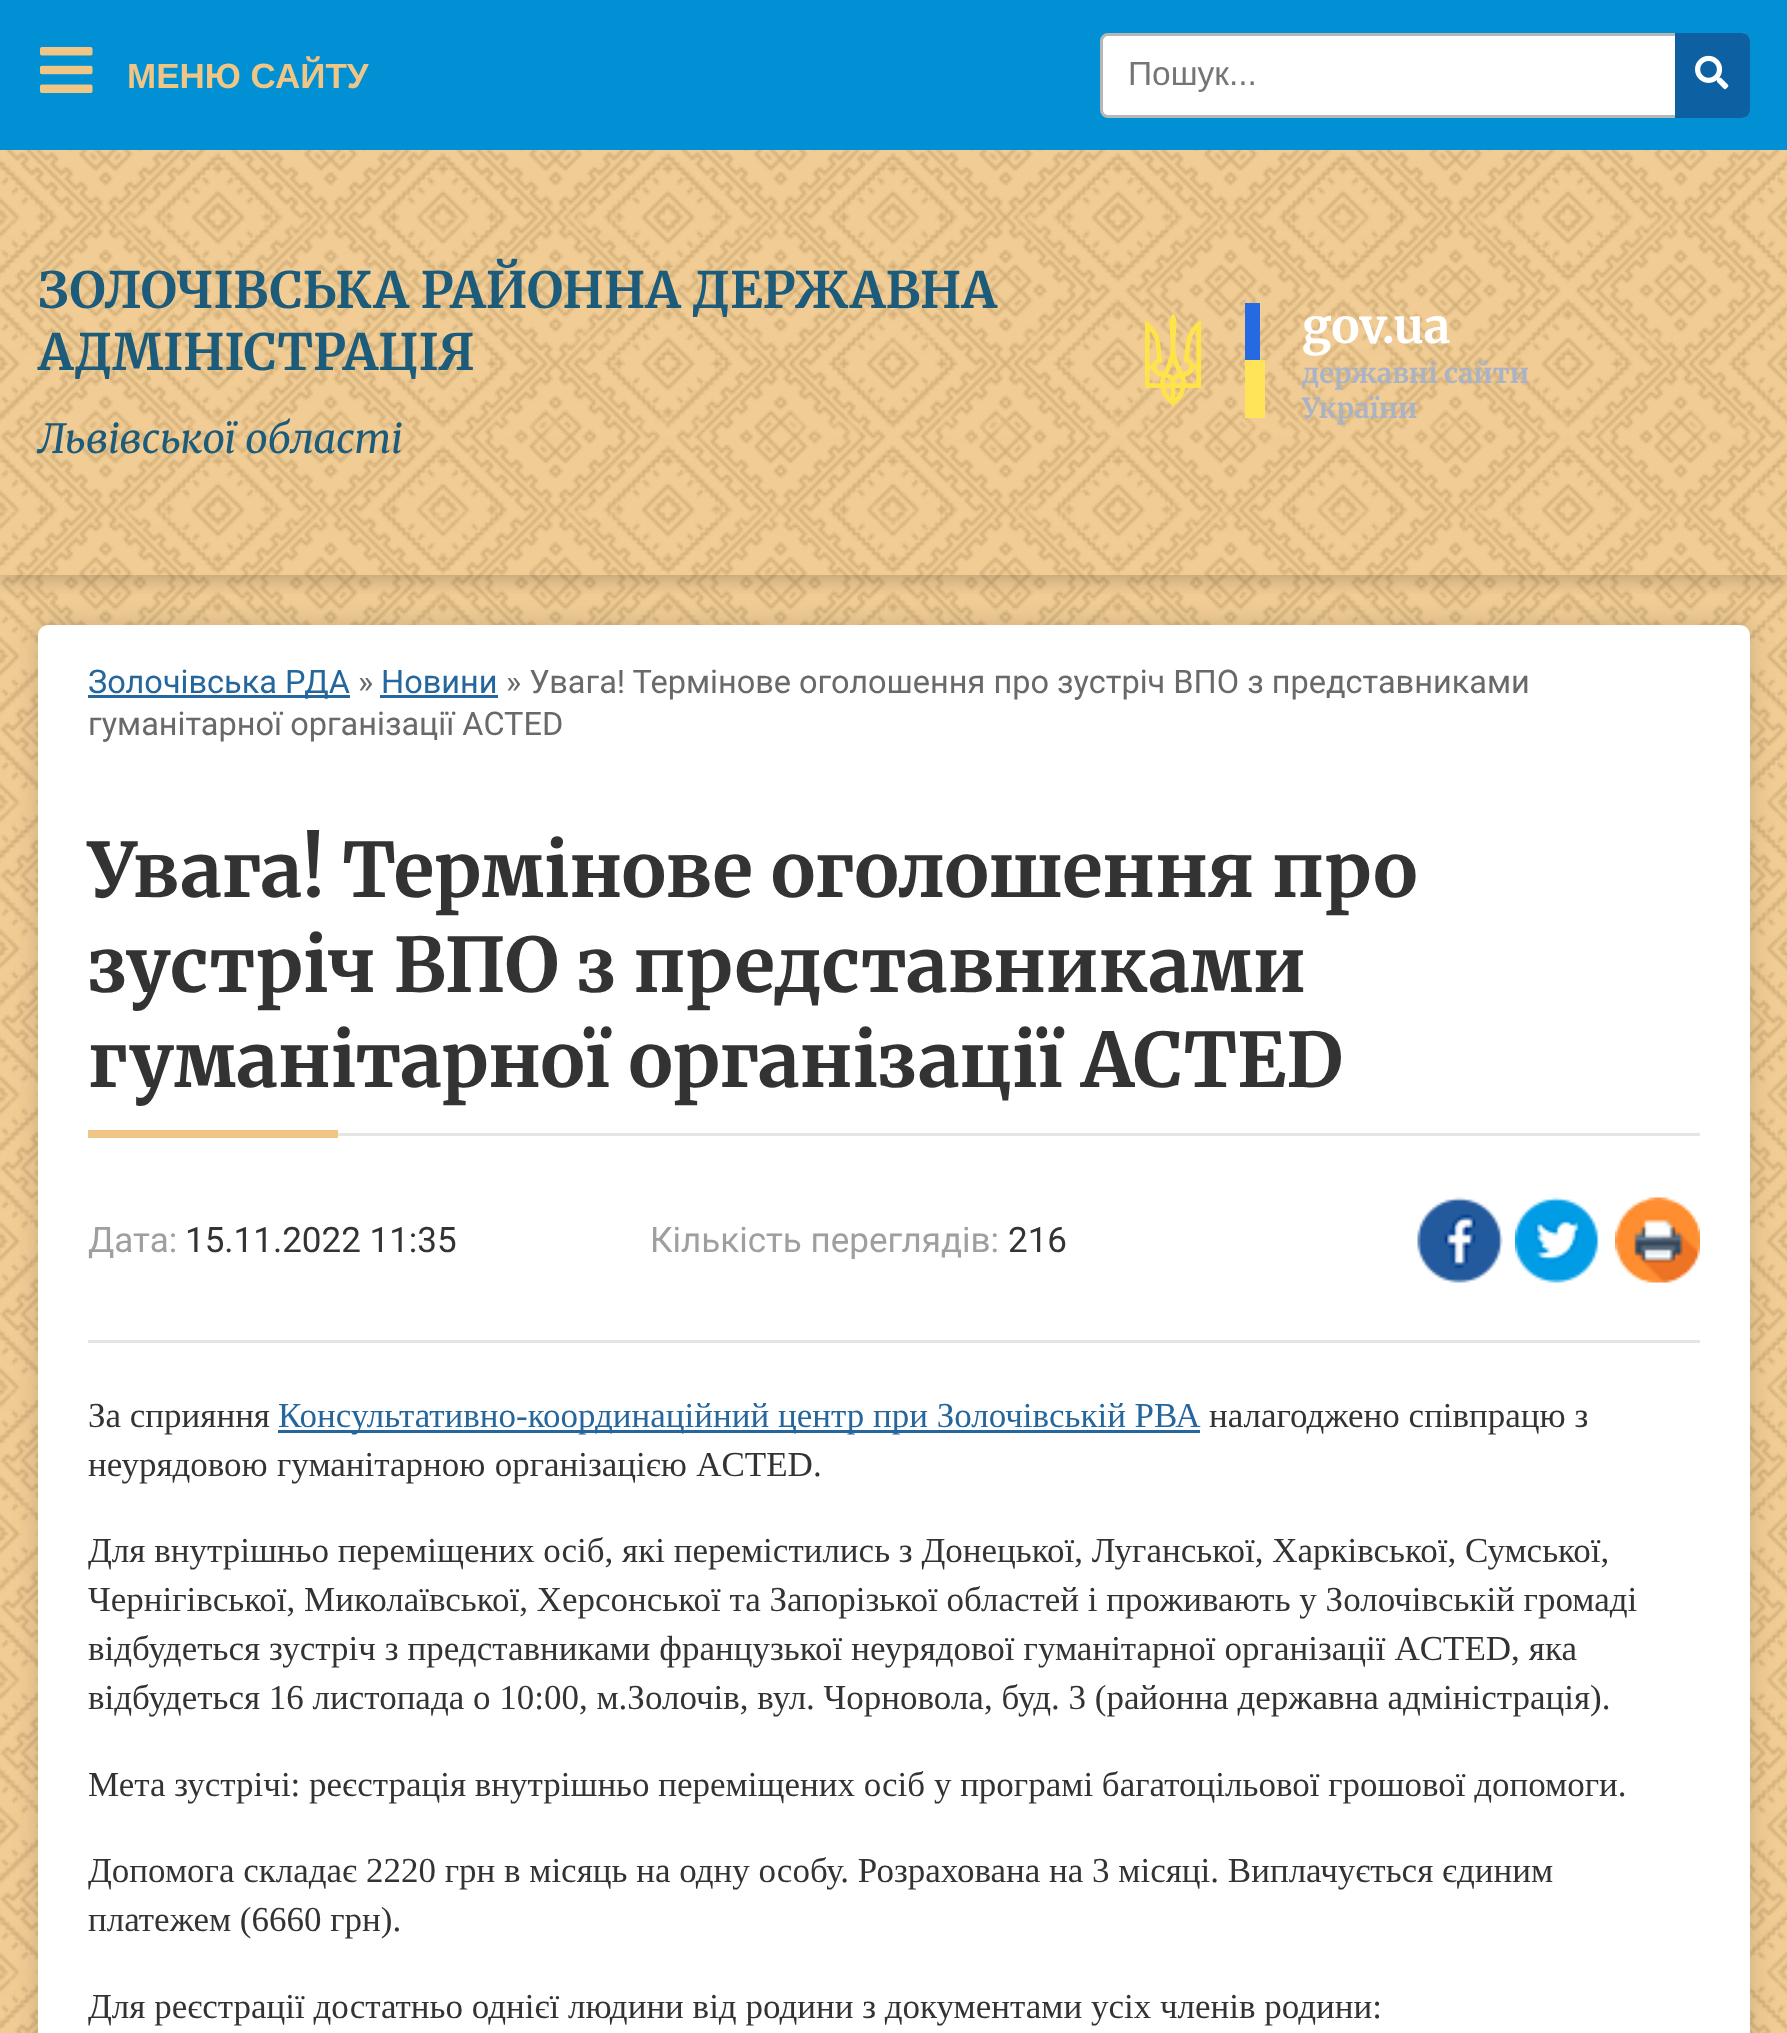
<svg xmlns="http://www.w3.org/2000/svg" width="1787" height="2033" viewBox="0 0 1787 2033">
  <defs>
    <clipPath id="clip1"><rect x="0" y="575" width="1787" height="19"/></clipPath>
  </defs>
  <rect width="100%" height="100%" fill="rgb(240,198,135)"/>
  <image x="0" y="150" width="1787" height="1883" href="pic1.png"/>
  <rect x="38" y="625" width="1712" height="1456" rx="10" fill="rgba(0,0,0,0.15)" filter="blur(12.5px)"/>
  <rect x="38" y="625" width="1712" height="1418" rx="10" fill="rgb(255,255,255)"/>
  <g clip-path="url(#clip1)">
    <rect x="0" y="150" width="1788" height="425" fill="rgba(0,0,0,0.3)" filter="blur(12.5px)"/>
  </g>
  <rect x="0" y="0" width="1787" height="150" fill="rgb(0,144,211)"/>
  <image x="40" y="47" width="53" height="46" href="pic2.png"/>
  <text x="127" y="88" font-family="Liberation Sans" font-size="35" font-weight="bold" fill="rgb(240,198,135)">МЕНЮ САЙТУ</text>
  <rect x="88" y="695" width="262" height="3" fill="rgb(37,102,156)"/>
  <text x="88" y="693" font-family="Roboto" font-size="32.5" fill="rgb(37,102,156)">Золочівська РДА</text>
  <text x="358" y="693" font-family="Roboto" font-size="32.5" fill="rgb(105,105,105)">»</text>
  <text x="381" y="693" font-family="Roboto" font-size="32.5" fill="rgb(37,102,156)">Новини</text>
  <rect x="380" y="695" width="118" height="3" fill="rgb(37,102,156)"/>
  <g font-family="Roboto" font-size="32.5" fill="rgb(105,105,105)">
    <text x="506" y="693">» Увага! Термінове оголошення про зустріч ВПО з представниками</text>
    <text x="88" y="735">гуманітарної організації ACTED</text>
  </g>
  <rect x="338" y="1133" width="1362" height="3" fill="rgb(229,229,229)"/>
  <g font-family="Merriweather" font-size="75" font-weight="300" fill="rgb(51,51,51)">
    <text>
      <tspan x="88" y="897">Увага! Термінове оголошення про</tspan>
      <tspan x="88" y="992">зустріч ВПО з представниками</tspan>
      <tspan x="88" y="1087">гуманітарної організації ACTED</tspan>
    </text>
  </g>
  <rect x="88" y="1130" width="250" height="8" fill="rgb(240,198,135)"/>
  <text x="88" y="1252" font-family="Roboto" font-size="35" fill="rgb(159,159,159)">Дата:</text>
  <text x="185" y="1252" font-family="Roboto" font-size="35" fill="rgb(51,51,51)">15.11.2022 11:35</text>
  <text x="650" y="1252" font-family="Roboto" font-size="35" fill="rgb(159,159,159)">Кількість переглядів:</text>
  <text x="1008" y="1252" font-family="Roboto" font-size="35" fill="rgb(51,51,51)">216</text>
  <image x="1417" y="1197" width="86" height="86" href="pic3.png"/>
  <image x="1515" y="1197" width="84" height="86" href="pic4.png"/>
  <image x="1615" y="1197" width="85" height="86" href="pic5.png"/>
  <rect x="88" y="1340" width="1612" height="3" fill="rgb(229,229,229)"/>
  <text x="88" y="1427" font-family="Liberation Serif" font-size="35" fill="rgb(51,51,51)">За сприяння</text>
  <rect x="278" y="1430" width="922" height="3" fill="rgb(37,102,156)"/>
  <text x="278" y="1427" font-family="Liberation Serif" font-size="35" fill="rgb(37,102,156)">Консультативно-координаційний центр при Золочівській РВА</text>
  <g font-family="Liberation Serif" font-size="35" fill="rgb(51,51,51)">
    <text x="1209" y="1427">налагоджено співпрацю з</text>
    <text x="88" y="1476" word-spacing="0.5">неурядовою гуманітарною організацією ACTED.</text>
    <text>
      <tspan x="88" y="1562">Для внутрішньо переміщених осіб, які перемістились з Донецької, Луганської, Харківської, Сумської,</tspan>
      <tspan x="88" y="1611">Чернігівської, Миколаївської, Херсонської та Запорізької областей і проживають у Золочівській громаді</tspan>
      <tspan x="88" y="1660" word-spacing="0.25">відбудеться зустріч з представниками французької неурядової гуманітарної організації ACTED, яка</tspan>
      <tspan x="88" y="1709">відбудеться 16 листопада о 10:00, м.Золочів, вул. Чорновола, буд. 3 (районна державна адміністрація).</tspan>
    </text>
    <text x="88" y="1796">Мета зустрічі: реєстрація внутрішньо переміщених осіб у програмі багатоцільової грошової допомоги.</text>
    <text>
      <tspan x="88" y="1882">Допомога складає 2220 грн в місяць на одну особу. Розрахована на 3 місяці. Виплачується єдиним</tspan>
      <tspan x="88" y="1931">платежем (6660 грн).</tspan>
    </text>
    <text x="88" y="2018">Для реєстрації достатньо однієї людини від родини з документами усіх членів родини:</text>
  </g>
  <rect x="1101.5" y="34.5" width="647" height="82" rx="6.5" fill="rgb(255,255,255)" stroke="rgb(183,183,183)" stroke-width="3"/>
  <text x="1128" y="85" font-family="Liberation Sans" font-size="33.5" fill="rgb(117,117,117)">Пошук...</text>
  <path d="M1675 33H1742C1746.5 33 1750 36.5 1750 41V110C1750 114.5 1746.5 118 1742 118H1675Z" fill="rgb(13,97,162)"/>
  <image x="1695" y="55" width="34" height="35" href="pic6.png"/>
  <g font-family="Merriweather" font-size="50" font-weight="300" fill="rgb(29,91,122)">
    <text>
      <tspan x="38" y="308">ЗОЛОЧІВСЬКА РАЙОННА ДЕРЖАВНА</tspan>
      <tspan x="38" y="370">АДМІНІСТРАЦІЯ</tspan>
    </text>
  </g>
  <text x="38" y="453" font-family="Merriweather" font-size="40" font-weight="300" font-style="italic" fill="rgb(29,91,122)">Львівської області</text>
  <image x="1145" y="313" width="56" height="94" href="pic7.png"/>
  <rect x="1245" y="303" width="15" height="57" fill="rgb(38,105,227)"/>
  <rect x="1245" y="360" width="20" height="58" fill="rgb(255,227,88)"/>
  <text x="1302" y="343" font-family="Merriweather" font-size="47.5" font-weight="300" fill="rgb(255,255,255)">gov.ua</text>
  <g font-family="Merriweather" font-size="27.5" font-weight="300" fill="rgb(170,179,198)">
    <text>
      <tspan x="1302" y="383">державні сайти</tspan>
      <tspan x="1302" y="418">України</tspan>
    </text>
  </g>
</svg>
